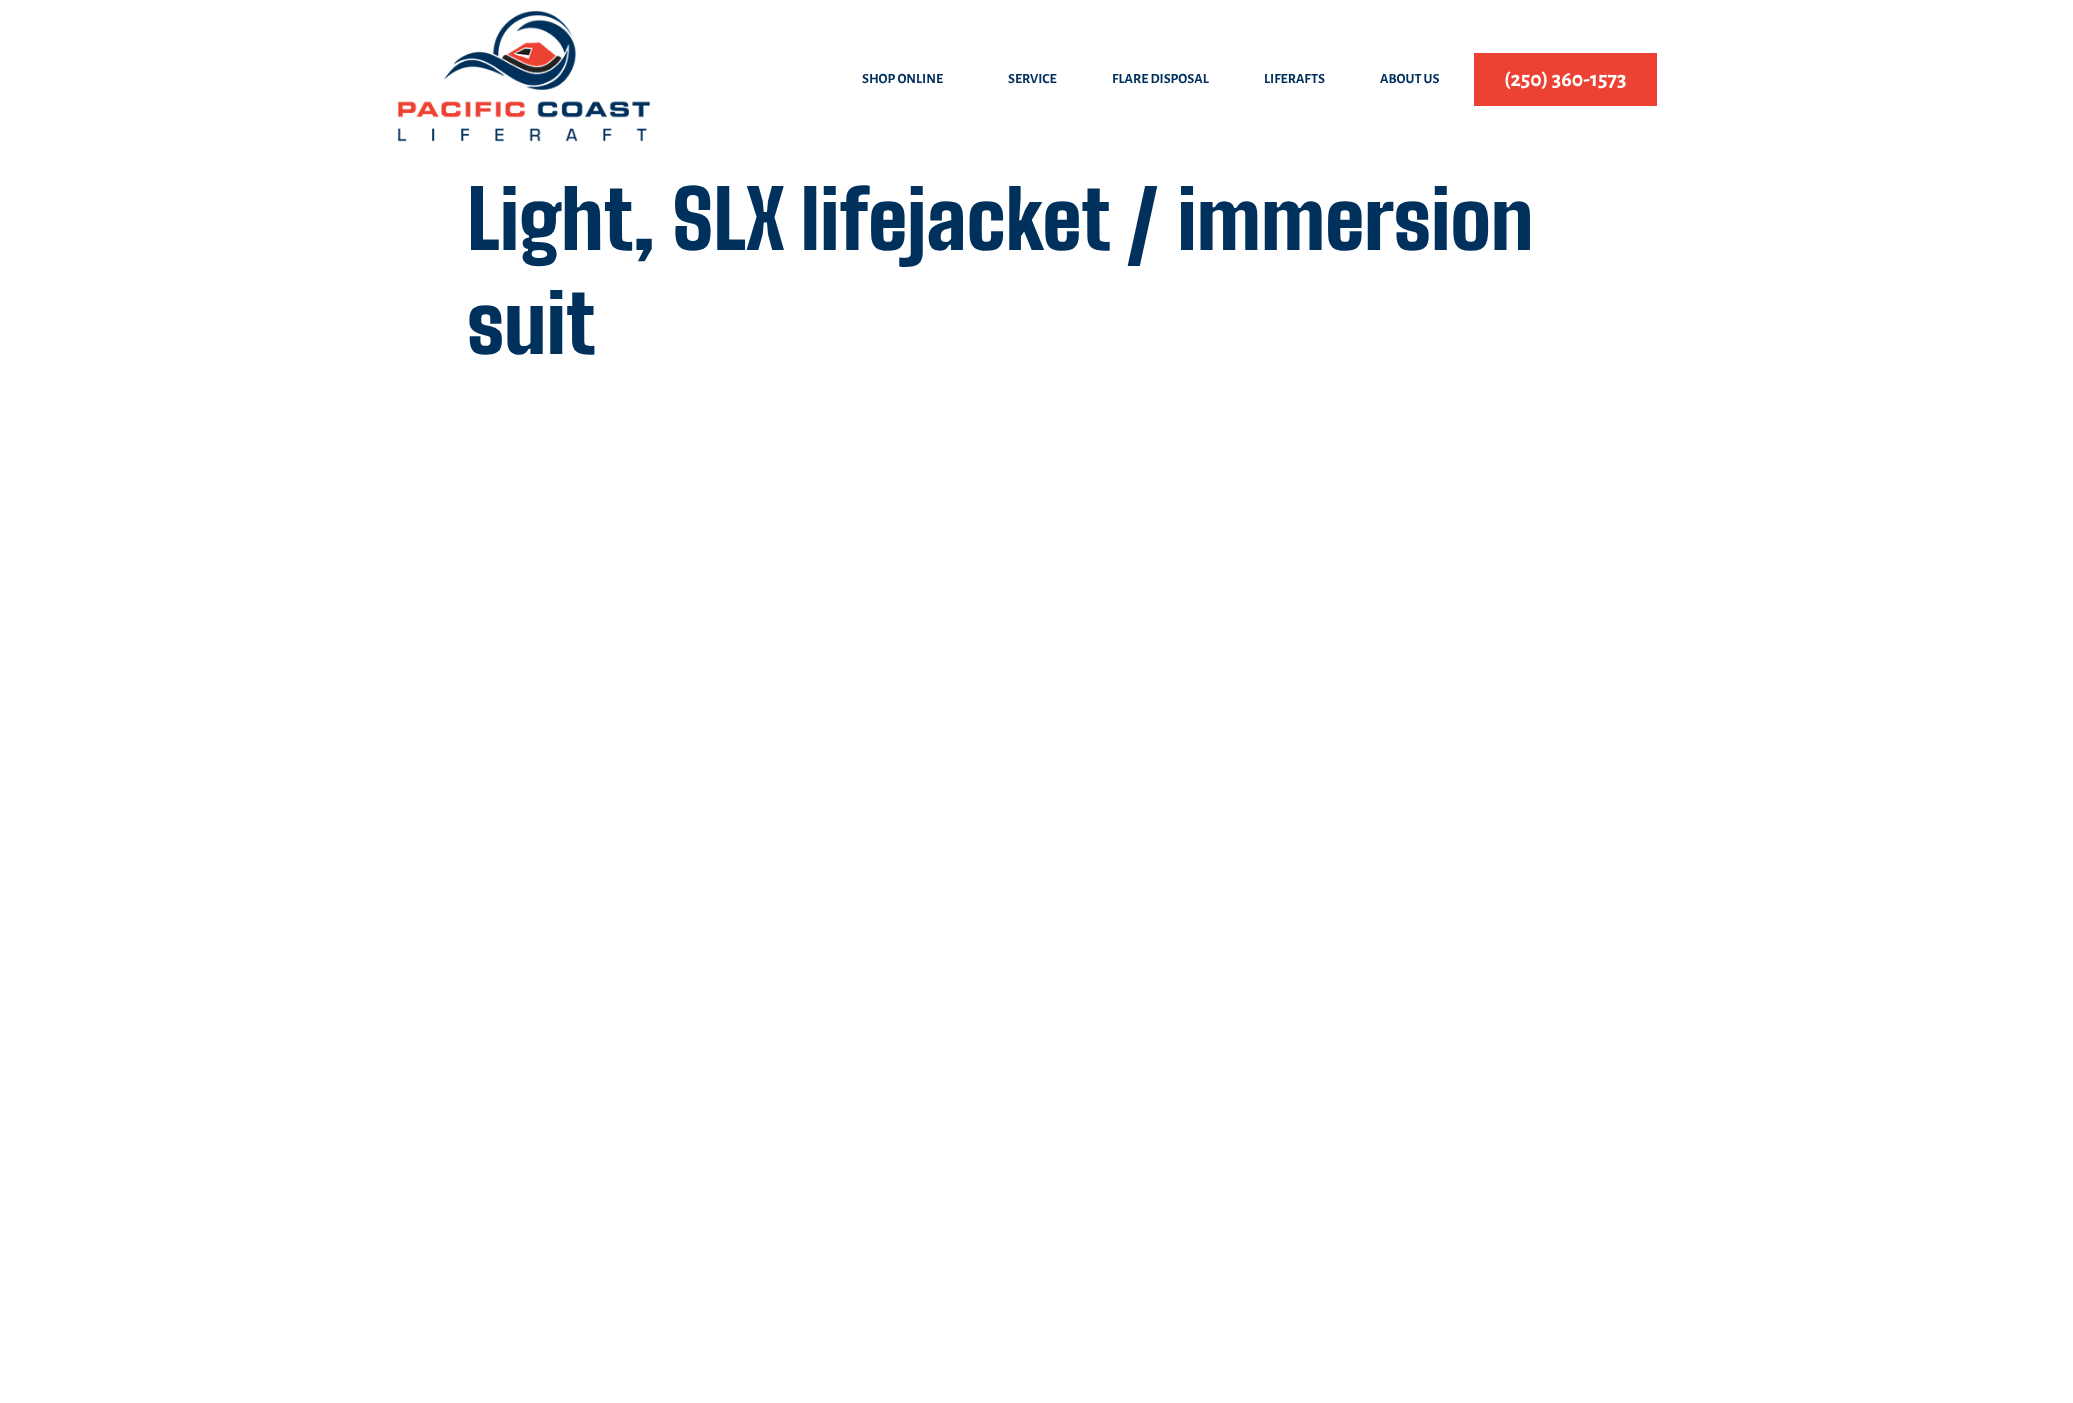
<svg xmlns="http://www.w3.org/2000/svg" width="2073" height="1403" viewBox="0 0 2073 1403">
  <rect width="100%" height="100%" fill="rgb(255,255,255)"/>
  <image x="397" y="10" width="253" height="132" href="pic1.png"/>
  <g font-family="Alegreya Sans" font-size="14" font-weight="bold" fill="rgb(0,48,92)">
    <text x="862" y="83">SHOP ONLINE</text>
    <text x="1008" y="83">SERVICE</text>
    <text x="1112" y="83">FLARE DISPOSAL</text>
    <text x="1264" y="83">LIFERAFTS</text>
    <text x="1380" y="83">ABOUT US</text>
  </g>
  <rect x="1474" y="53" width="183" height="53" fill="rgb(236,66,52)"/>
  <text x="1504" y="86" font-family="Alegreya Sans" font-size="22" font-weight="bold" fill="rgb(255,255,255)">(250) 360-1573</text>
  <g font-family="Big Shoulders Text" font-size="80" font-weight="900" fill="rgb(0,48,92)">
    <text>
      <tspan x="467" y="250">Light, SLX lifejacket / immersion</tspan>
      <tspan x="467" y="354">suit</tspan>
    </text>
  </g>
</svg>
